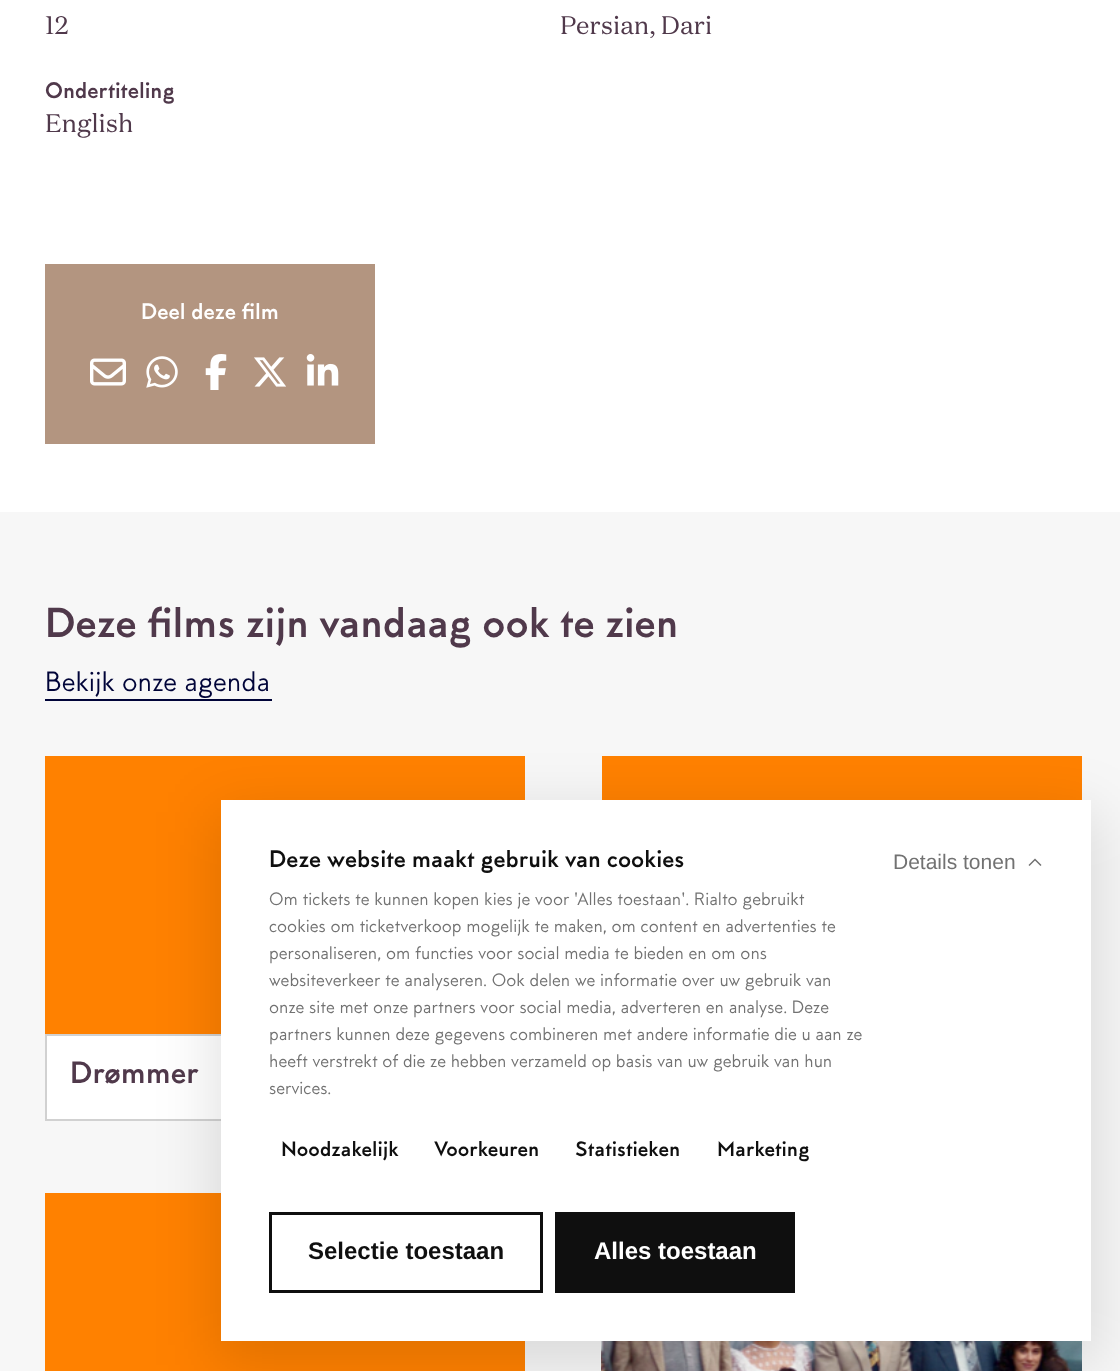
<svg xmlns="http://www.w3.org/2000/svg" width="1120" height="1371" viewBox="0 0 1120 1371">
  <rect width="100%" height="100%" fill="rgb(255,255,255)"/>
  <g font-family="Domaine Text" font-size="25.25" fill="rgb(80,57,75)">
    <text x="45" y="34">12</text>
    <text x="560" y="34">Persian, Dari</text>
  </g>
  <text x="45" y="98" font-family="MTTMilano" font-size="22.5" fill="rgb(80,57,75)">Ondertiteling</text>
  <text x="45" y="132" font-family="Domaine Text" font-size="25.25" fill="rgb(80,57,75)">English</text>
  <rect x="45" y="264" width="330" height="180" fill="rgb(179,149,128)"/>
  <text x="141" y="319" font-family="MTTMilano" font-size="22.5" fill="rgb(255,255,255)">Deel deze film</text>
  <image x="90" y="358" width="36" height="28" href="pic1.png"/>
  <image x="146" y="356" width="32" height="32" href="pic2.png"/>
  <image x="205" y="354" width="22" height="36" href="pic3.png"/>
  <image x="254" y="357" width="32" height="30" href="pic4.png"/>
  <image x="306" y="354" width="33" height="32" href="pic5.png"/>
  <rect x="0" y="512" width="1120" height="859" fill="rgb(247,247,247)"/>
  <text x="45" y="637" font-family="MTTMilano" font-size="42.25" fill="rgb(80,57,75)">Deze films zijn vandaag ook te zien</text>
  <text x="45" y="691" font-family="'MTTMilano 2'" font-size="28" fill="rgb(0,4,56)">Bekijk onze agenda</text>
  <rect x="45" y="699" width="227" height="2" fill="rgb(0,4,56)"/>
  <rect x="602" y="756" width="480" height="44" fill="rgb(255,129,0)"/>
  <rect x="45" y="756" width="480" height="278" fill="rgb(255,129,0)"/>
  <rect x="47" y="1036" width="174" height="83" fill="rgb(255,255,255)"/>
  <rect x="46" y="1035" width="478" height="85" fill="none" stroke="rgb(209,209,209)" stroke-width="2"/>
  <text x="70" y="1083" font-family="MTTMilano" font-size="31" fill="rgb(80,57,75)">Drømmer</text>
  <rect x="45" y="1193" width="480" height="178" fill="rgb(255,129,0)"/>
  <image x="601" y="1341" width="481" height="30" href="pic6.png"/>
  <rect x="215" y="812" width="882" height="553" fill="rgba(0,0,0,0.12)" filter="blur(30px)"/>
  <rect x="221" y="800" width="870" height="541" fill="rgb(255,255,255)"/>
  <text x="269" y="867" font-family="MTTMilano" font-size="24" fill="rgb(15,15,15)">Deze website maakt gebruik van cookies</text>
  <g font-family="'MTTMilano 2'" font-size="18" fill="rgb(114,114,114)">
    <text>
      <tspan x="269" y="905">Om tickets te kunnen kopen kies je voor 'Alles toestaan'. Rialto gebruikt</tspan>
      <tspan x="269" y="932">cookies om ticketverkoop mogelijk te maken, om content en advertenties te</tspan>
      <tspan x="269" y="959">personaliseren, om functies voor social media te bieden en om ons</tspan>
      <tspan x="269" y="986">websiteverkeer te analyseren. Ook delen we informatie over uw gebruik van</tspan>
      <tspan x="269" y="1013">onze site met onze partners voor social media, adverteren en analyse. Deze</tspan>
      <tspan x="269" y="1040">partners kunnen deze gegevens combineren met andere informatie die u aan ze</tspan>
      <tspan x="269" y="1067">heeft verstrekt of die ze hebben verzameld op basis van uw gebruik van hun</tspan>
      <tspan x="269" y="1094">services.</tspan>
    </text>
  </g>
  <text x="893" y="869" font-family="Liberation Sans" font-size="21" fill="rgb(114,114,114)">Details tonen</text>
  <path d="M1029 865.5L1035 859.5L1041 865.5" fill="none" stroke="rgb(114,114,114)" stroke-width="1.5"/>
  <g font-family="MTTMilano" font-size="21" fill="rgb(15,15,15)">
    <text x="281" y="1156">Noodzakelijk</text>
    <text x="434" y="1156">Voorkeuren</text>
    <text x="575" y="1156">Statistieken</text>
    <text x="717" y="1156">Marketing</text>
  </g>
  <rect x="270.5" y="1213.5" width="271" height="78" fill="none" stroke="rgb(15,15,15)" stroke-width="3"/>
  <text x="308" y="1259" font-family="Liberation Sans" font-size="24" font-weight="bold" fill="rgb(15,15,15)">Selectie toestaan</text>
  <rect x="555" y="1212" width="240" height="81" fill="rgb(15,15,15)"/>
  <text x="594" y="1259" font-family="Liberation Sans" font-size="24" font-weight="bold" fill="rgb(255,255,255)">Alles toestaan</text>
</svg>
